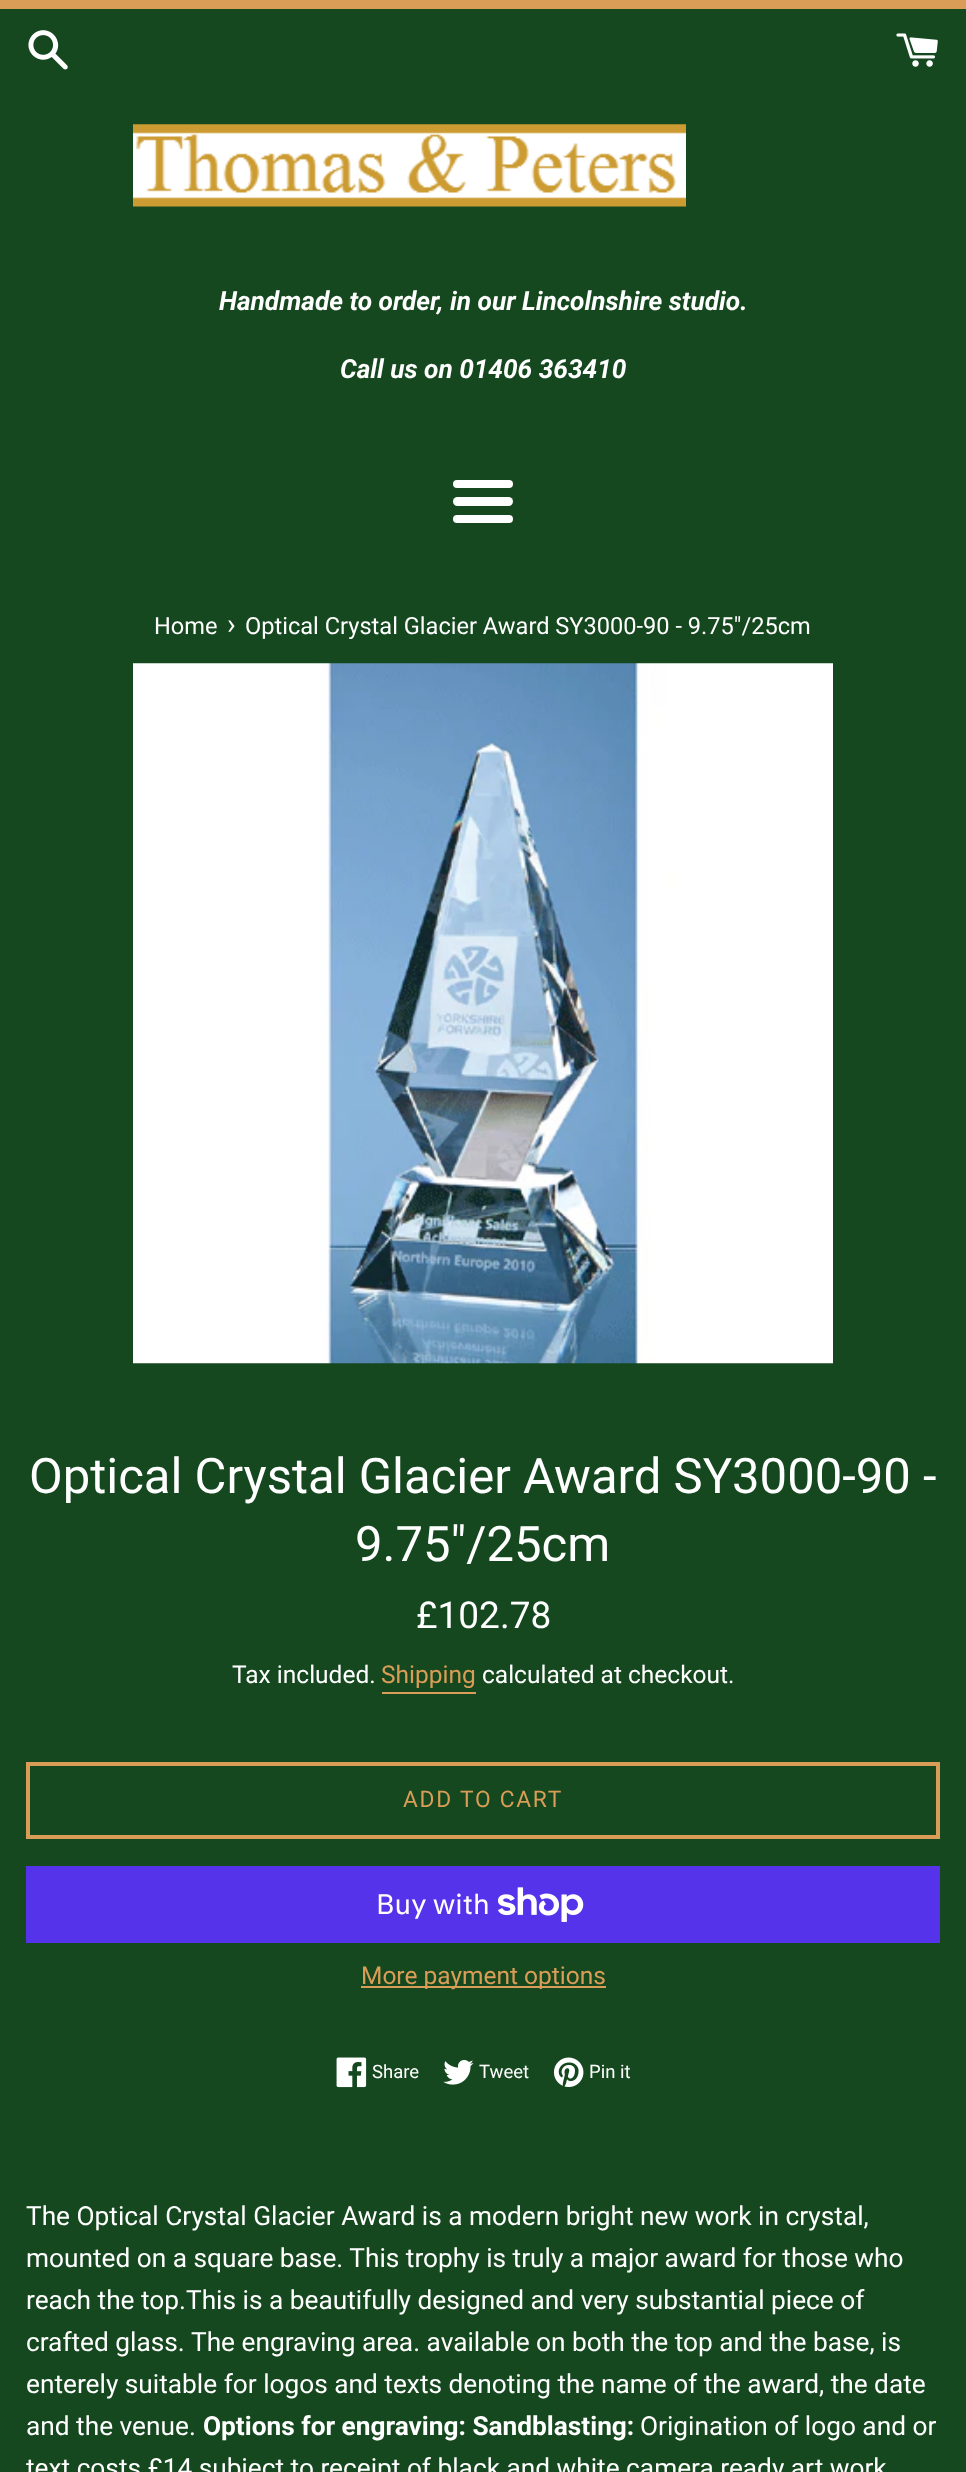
<svg xmlns="http://www.w3.org/2000/svg" width="966" height="2472" viewBox="0 0 966 2472">
  <rect width="100%" height="100%" fill="rgb(21,72,31)"/>
  <rect x="0" y="0" width="966" height="9" fill="rgb(217,157,87)"/>
  <image x="28" y="30" width="40" height="40" href="pic1.png"/>
  <image x="896" y="33" width="42" height="34" href="pic2.png"/>
  <image x="133" y="124" width="553" height="83" href="pic3.png"/>
  <g font-family="Roboto" font-size="26.25" font-weight="bold" font-style="italic" fill="rgb(255,255,255)">
    <text x="219" y="310">Handmade to order, in our Lincolnshire studio.</text>
    <text x="340" y="378">Call us on 01406 363410</text>
  </g>
  <rect x="453" y="480" width="60" height="8" rx="4" fill="rgb(255,255,255)"/>
  <rect x="453" y="497" width="60" height="9" rx="4.5" fill="rgb(255,255,255)"/>
  <rect x="453" y="515" width="60" height="8" rx="4" fill="rgb(255,255,255)"/>
  <text x="154" y="634" font-family="Roboto" font-size="23.6" fill="rgb(255,255,255)">Home</text>
  <text x="227" y="634" font-family="Roboto" font-size="29" fill="rgb(255,255,255)">›</text>
  <text x="245" y="634" font-family="Roboto" font-size="23.6" fill="rgb(255,255,255)">Optical Crystal Glacier Award SY3000-90 - 9.75"/25cm</text>
  <image x="133" y="663" width="700" height="701" href="pic4.png"/>
  <g font-family="Roboto" font-size="49" fill="rgb(255,255,255)">
    <text x="29" y="1493">Optical Crystal Glacier Award SY3000-90 -</text>
    <text x="355" y="1561">9.75"/25cm</text>
  </g>
  <text x="416" y="1628" font-family="Roboto" font-size="37" fill="rgb(255,255,255)">£102.78</text>
  <text x="232" y="1683" font-family="Roboto" font-size="24.5" fill="rgb(255,255,255)">Tax included.</text>
  <text x="381" y="1683" font-family="Roboto" font-size="24.5" fill="rgb(217,157,87)">Shipping</text>
  <rect x="382" y="1692" width="94" height="2" fill="rgb(217,157,87)"/>
  <text x="482" y="1683" font-family="Roboto" font-size="24.5" fill="rgb(255,255,255)">calculated at checkout.</text>
  <rect x="28" y="1764" width="910" height="73" fill="none" stroke="rgb(217,157,87)" stroke-width="4"/>
  <text x="403" y="1807" font-family="Roboto" font-size="22.75" letter-spacing="1.75" fill="rgb(217,157,87)">ADD TO CART</text>
  <rect x="26" y="1866" width="914" height="77" fill="rgb(84,51,235)"/>
  <text x="376" y="1914" font-family="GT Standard" font-size="28" fill="rgb(255,255,255)">Buy with</text>
  <image x="498" y="1887" width="86" height="35" href="pic5.png"/>
  <rect x="361" y="1986" width="245" height="2" fill="rgb(217,157,87)"/>
  <text x="361" y="1984" font-family="Roboto" font-size="24.5" fill="rgb(217,157,87)">More payment options</text>
  <image x="336" y="2057" width="31" height="31" href="pic6.png"/>
  <text x="372" y="2078" font-family="Roboto" font-size="18.5" fill="rgb(255,255,255)">Share</text>
  <image x="443" y="2060" width="31" height="25" href="pic7.png"/>
  <text x="479" y="2078" font-family="Roboto" font-size="18.5" fill="rgb(255,255,255)">Tweet</text>
  <image x="553" y="2057" width="31" height="30" href="pic8.png"/>
  <text x="589" y="2078" font-family="Roboto" font-size="18.5" fill="rgb(255,255,255)">Pin it</text>
  <g font-family="Roboto" font-size="26.25" fill="rgb(255,255,255)">
    <text>
      <tspan x="26" y="2225">The Optical Crystal Glacier Award is a modern bright new work in crystal,</tspan>
      <tspan x="26" y="2267">mounted on a square base. This trophy is truly a major award for those who</tspan>
      <tspan x="26" y="2309">reach the top.This is a beautifully designed and very substantial piece of</tspan>
      <tspan x="26" y="2351">crafted glass.</tspan>
    </text>
    <text x="191" y="2351">The engraving area. available on both the top and the base, is</text>
    <text>
      <tspan x="26" y="2393">enterely suitable for logos and texts denoting the name of the award, the date</tspan>
      <tspan x="26" y="2435">and the venue.</tspan>
    </text>
  </g>
  <text x="203" y="2435" font-family="Roboto" font-size="26.25" font-weight="bold" fill="rgb(255,255,255)">Options for engraving: Sandblasting:</text>
  <g font-family="Roboto" font-size="26.25" fill="rgb(255,255,255)">
    <text x="640" y="2435">Origination of logo and or</text>
    <text x="26" y="2477">text costs £14 subject to receipt of black and white camera ready art work</text>
  </g>
</svg>
